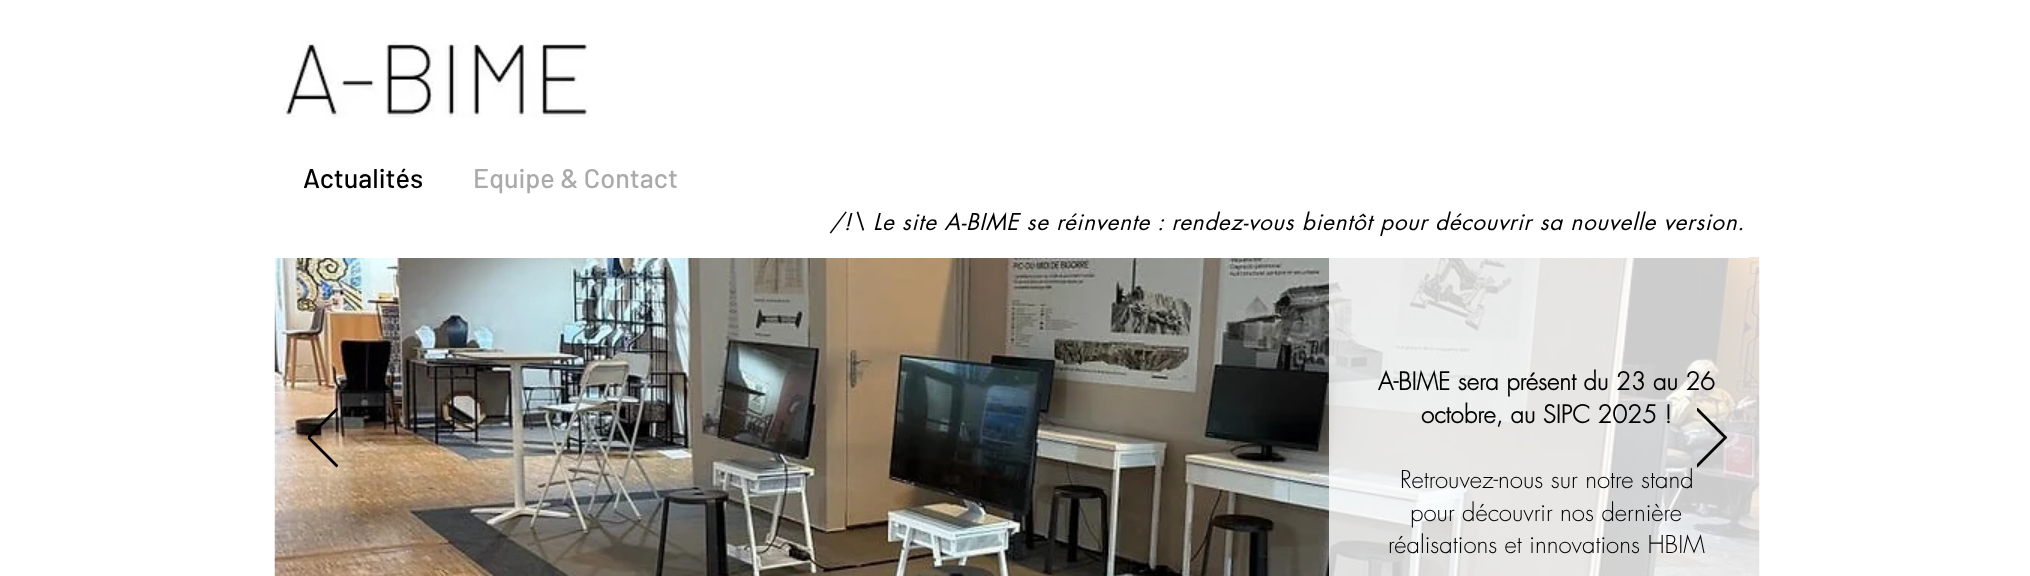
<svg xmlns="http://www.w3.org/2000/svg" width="2030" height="576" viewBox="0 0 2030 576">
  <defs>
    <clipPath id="clip1"><rect x="308" y="408" width="30" height="60"/></clipPath>
    <clipPath id="clip2"><rect x="1697" y="408" width="30" height="60"/></clipPath>
  </defs>
  <rect width="100%" height="100%" fill="rgb(255,255,255)"/>
  <image x="283" y="40" width="307" height="78" href="pic1.png"/>
  <text x="303" y="188" font-family="Barlow" font-size="27" font-weight="500" fill="rgb(0,0,0)">Actualités</text>
  <text x="473" y="188" font-family="Barlow" font-size="27" font-weight="500" fill="rgb(170,170,170)">Equipe &amp; Contact</text>
  <text x="830" y="230" font-family="futura" font-size="22.5" font-style="italic" letter-spacing="0.68" fill="rgb(0,0,0)">/!\ Le site A-BIME se réinvente : rendez-vous bientôt pour découvrir sa nouvelle version.</text>
  <image x="274" y="257" width="1486" height="319" href="pic2.png"/>
  <rect x="1329" y="257" width="431" height="319" fill="rgba(255,255,255,0.8)"/>
  <rect x="274" y="257" width="1475" height="1" fill="rgb(255,255,255)"/>
  <g clip-path="url(#clip1)">
    <path d="M336.5 466.5L307.5 437.5L336.5 408.5L337.5 409.5L309.5 437.5L337.5 465.5Z" fill="none" stroke="rgb(0,0,0)" stroke-width="1.4"/>
  </g>
  <g font-family="futura" font-size="24" font-weight="bold" fill="rgb(0,0,0)">
    <text x="1378" y="390">A-BIME sera présent du 23 au 26</text>
    <text x="1421" y="423">octobre, au SIPC 2025 !</text>
  </g>
  <g font-family="futura" font-size="24" font-weight="300" fill="rgb(0,0,0)">
    <text x="1400" y="488">Retrouvez-nous sur notre stand</text>
    <text x="1410" y="521">pour découvrir nos dernière</text>
    <text x="1388" y="553">réalisations et innovations HBIM</text>
  </g>
  <g clip-path="url(#clip2)">
    <path d="M1697.5 466.5L1726.5 437.5L1697.5 408.5L1696.5 409.5L1724.5 437.5L1696.5 465.5Z" fill="none" stroke="rgb(0,0,0)" stroke-width="1.4"/>
  </g>
</svg>
